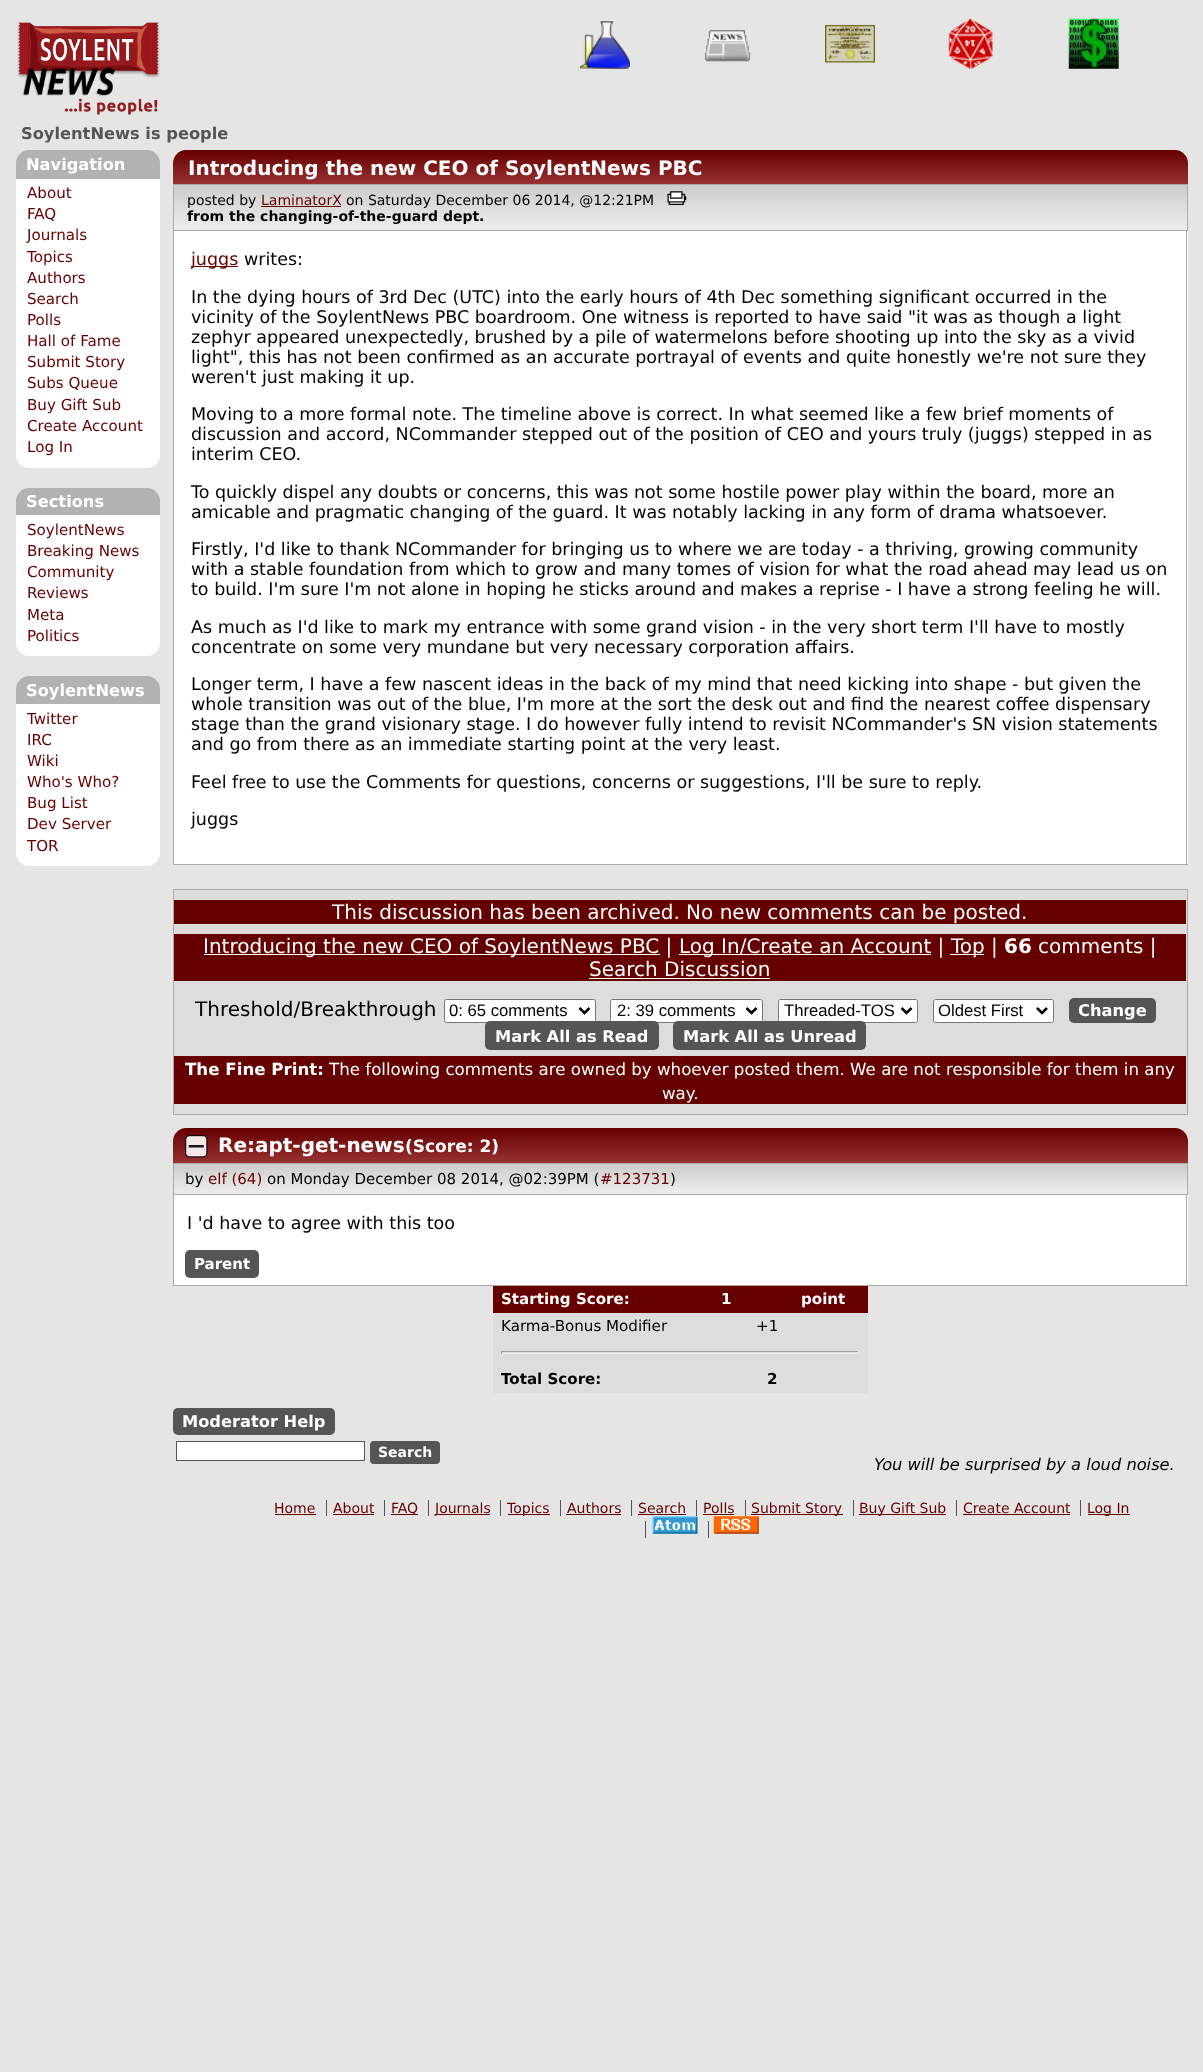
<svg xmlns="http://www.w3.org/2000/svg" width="1203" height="2072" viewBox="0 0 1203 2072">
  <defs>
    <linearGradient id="g1" gradientUnits="userSpaceOnUse" x1="680" y1="150" x2="680" y2="184"><stop offset="0" stop-color="rgb(102,0,0)"/><stop offset="1" stop-color="rgb(153,51,51)"/></linearGradient>
    <linearGradient id="g2" gradientUnits="userSpaceOnUse" x1="680" y1="185" x2="680" y2="230"><stop offset="0" stop-color="rgb(204,204,204)"/><stop offset="1" stop-color="rgb(238,238,238)"/></linearGradient>
    <linearGradient id="g3" gradientUnits="userSpaceOnUse" x1="680" y1="1128" x2="680" y2="1163"><stop offset="0" stop-color="rgb(102,0,0)"/><stop offset="1" stop-color="rgb(153,51,51)"/></linearGradient>
    <linearGradient id="g4" gradientUnits="userSpaceOnUse" x1="680" y1="1164" x2="680" y2="1194"><stop offset="0" stop-color="rgb(204,204,204)"/><stop offset="1" stop-color="rgb(238,238,238)"/></linearGradient>
  </defs>
  <rect width="100%" height="100%" fill="rgb(229,229,229)"/>
  <image x="17" y="22" width="143" height="93" href="pic1.png"/>
  <image x="580" y="21" width="50" height="48" href="pic2.png"/>
  <image x="704" y="29" width="47" height="33" href="pic3.png"/>
  <image x="825" y="24" width="50" height="39" href="pic4.png"/>
  <image x="948" y="18" width="45" height="51" href="pic5.png"/>
  <image x="1068" y="18" width="51" height="51" href="pic6.png"/>
  <text x="21" y="139" font-family="DejaVu Sans" font-size="16.25" font-weight="bold" fill="rgb(85,85,85)">SoylentNews is people</text>
  <path d="M29 150H147C154 150 160 156 160 163V179H16V163C16 156 22 150 29 150Z" fill="rgb(178,178,178)"/>
  <text x="26" y="170" font-family="DejaVu Sans" font-size="16.25" font-weight="bold" fill="rgb(255,255,255)">Navigation</text>
  <path d="M16 179H160V455C160 462 154 468 147 468H29C22 468 16 462 16 455Z" fill="rgb(255,255,255)"/>
  <g font-family="DejaVu Sans" font-size="15.1" fill="rgb(102,0,0)">
    <text>
      <tspan x="27" y="198">About</tspan>
      <tspan x="27" y="219">FAQ</tspan>
      <tspan x="27" y="240">Journals</tspan>
      <tspan x="27" y="262">Topics</tspan>
      <tspan x="27" y="283">Authors</tspan>
      <tspan x="27" y="304">Search</tspan>
      <tspan x="27" y="325">Polls</tspan>
      <tspan x="27" y="346">Hall of Fame</tspan>
      <tspan x="27" y="367">Submit Story</tspan>
      <tspan x="27" y="388">Subs Queue</tspan>
      <tspan x="27" y="410">Buy Gift Sub</tspan>
      <tspan x="27" y="431">Create Account</tspan>
      <tspan x="27" y="452">Log In</tspan>
    </text>
  </g>
  <path d="M29 488H147C154 488 160 494 160 501V515H16V501C16 494 22 488 29 488Z" fill="rgb(178,178,178)"/>
  <text x="26" y="507" font-family="DejaVu Sans" font-size="16.25" font-weight="bold" fill="rgb(255,255,255)">Sections</text>
  <path d="M16 515H160V643C160 650 154 656 147 656H29C22 656 16 650 16 643Z" fill="rgb(255,255,255)"/>
  <g font-family="DejaVu Sans" font-size="15.1" fill="rgb(102,0,0)">
    <text>
      <tspan x="27" y="535">SoylentNews</tspan>
      <tspan x="27" y="556">Breaking News</tspan>
      <tspan x="27" y="577">Community</tspan>
      <tspan x="27" y="598">Reviews</tspan>
      <tspan x="27" y="620">Meta</tspan>
      <tspan x="27" y="641">Politics</tspan>
    </text>
  </g>
  <path d="M29 676H147C154 676 160 682 160 689V704H16V689C16 682 22 676 29 676Z" fill="rgb(178,178,178)"/>
  <text x="26" y="696" font-family="DejaVu Sans" font-size="16.25" font-weight="bold" fill="rgb(255,255,255)">SoylentNews</text>
  <path d="M16 704H160V853C160 860 154 866 147 866H29C22 866 16 860 16 853Z" fill="rgb(255,255,255)"/>
  <g font-family="DejaVu Sans" font-size="15.1" fill="rgb(102,0,0)">
    <text>
      <tspan x="27" y="724">Twitter</tspan>
      <tspan x="27" y="745">IRC</tspan>
      <tspan x="27" y="766">Wiki</tspan>
      <tspan x="27" y="787">Who's Who?</tspan>
      <tspan x="27" y="808">Bug List</tspan>
      <tspan x="27" y="829">Dev Server</tspan>
      <tspan x="27" y="851">TOR</tspan>
    </text>
  </g>
  <path d="M186 150H1175C1182 150 1188 156 1188 163V184H173V163C173 156 179 150 186 150Z" fill="url(#g1)"/>
  <text x="188" y="175" font-family="DejaVu Sans" font-size="20" font-weight="bold" fill="rgb(255,255,255)">Introducing the new CEO of SoylentNews PBC</text>
  <rect x="174" y="185" width="1013" height="45" fill="url(#g2)"/>
  <rect x="173.5" y="184.5" width="1014" height="46" fill="none" stroke="rgb(170,170,170)"/>
  <text x="187" y="205" font-family="DejaVu Sans" font-size="14" fill="rgb(0,0,0)">posted by</text>
  <text x="261" y="205" font-family="DejaVu Sans" font-size="14" fill="rgb(102,0,0)">LaminatorX</text>
  <rect x="261" y="206" width="80" height="1" fill="rgb(102,0,0)"/>
  <text x="346" y="205" font-family="DejaVu Sans" font-size="14" fill="rgb(0,0,0)">on Saturday December 06 2014, @12:21PM</text>
  <image x="667" y="191" width="20" height="14" href="pic7.png"/>
  <text x="187" y="221" font-family="DejaVu Sans" font-size="14" font-weight="bold" fill="rgb(0,0,0)">from the changing-of-the-guard dept.</text>
  <rect x="174" y="231" width="1014" height="633" fill="rgb(255,255,255)"/>
  <rect x="1186" y="231" width="1" height="634" fill="rgb(170,170,170)"/>
  <rect x="173" y="864" width="1015" height="1" fill="rgb(170,170,170)"/>
  <rect x="173" y="231" width="1" height="634" fill="rgb(170,170,170)"/>
  <rect x="191" y="266" width="47" height="1" fill="rgb(102,0,0)"/>
  <text x="191" y="265" font-family="DejaVu Sans" font-size="17.5" fill="rgb(102,0,0)">juggs</text>
  <g font-family="DejaVu Sans" font-size="17.5" fill="rgb(0,0,0)">
    <text x="244" y="265">writes:</text>
    <text>
      <tspan x="191" y="303">In the dying hours of 3rd Dec (UTC) into the early hours of 4th Dec something significant occurred in the</tspan>
      <tspan x="191" y="323">vicinity of the SoylentNews PBC boardroom. One witness is reported to have said "it was as though a light</tspan>
      <tspan x="191" y="343">zephyr appeared unexpectedly, brushed by a pile of watermelons before shooting up into the sky as a vivid</tspan>
      <tspan x="191" y="363">light", this has not been confirmed as an accurate portrayal of events and quite honestly we're not sure they</tspan>
      <tspan x="191" y="383">weren't just making it up.</tspan>
    </text>
    <text>
      <tspan x="191" y="420">Moving to a more formal note. The timeline above is correct. In what seemed like a few brief moments of</tspan>
      <tspan x="191" y="440">discussion and accord, NCommander stepped out of the position of CEO and yours truly (juggs) stepped in as</tspan>
      <tspan x="191" y="460">interim CEO.</tspan>
    </text>
    <text>
      <tspan x="191" y="498">To quickly dispel any doubts or concerns, this was not some hostile power play within the board, more an</tspan>
      <tspan x="191" y="518">amicable and pragmatic changing of the guard. It was notably lacking in any form of drama whatsoever.</tspan>
    </text>
    <text>
      <tspan x="191" y="555">Firstly, I'd like to thank NCommander for bringing us to where we are today - a thriving, growing community</tspan>
      <tspan x="191" y="575">with a stable foundation from which to grow and many tomes of vision for what the road ahead may lead us on</tspan>
      <tspan x="191" y="595">to build. I'm sure I'm not alone in hoping he sticks around and makes a reprise - I have a strong feeling he will.</tspan>
    </text>
    <text>
      <tspan x="191" y="633">As much as I'd like to mark my entrance with some grand vision - in the very short term I'll have to mostly</tspan>
      <tspan x="191" y="653">concentrate on some very mundane but very necessary corporation affairs.</tspan>
    </text>
    <text>
      <tspan x="191" y="690">Longer term, I have a few nascent ideas in the back of my mind that need kicking into shape - but given the</tspan>
      <tspan x="191" y="710">whole transition was out of the blue, I'm more at the sort the desk out and find the nearest coffee dispensary</tspan>
      <tspan x="191" y="730">stage than the grand visionary stage. I do however fully intend to revisit NCommander's SN vision statements</tspan>
      <tspan x="191" y="750">and go from there as an immediate starting point at the very least.</tspan>
    </text>
    <text x="191" y="788">Feel free to use the Comments for questions, concerns or suggestions, I'll be sure to reply.</text>
    <text x="191" y="825">juggs</text>
  </g>
  <rect x="173.5" y="889.5" width="1014" height="225" fill="rgb(221,221,221)" stroke="rgb(170,170,170)"/>
  <rect x="174" y="900" width="1012" height="24" fill="rgb(102,0,0)"/>
  <text x="332" y="919" font-family="DejaVu Sans" font-size="20" fill="rgb(255,255,255)">This discussion has been archived. No new comments can be posted.</text>
  <rect x="174" y="934" width="1012" height="47" fill="rgb(102,0,0)"/>
  <rect x="204" y="954" width="456" height="1" fill="rgb(255,255,255)"/>
  <text x="203" y="953" font-family="DejaVu Sans" font-size="20" fill="rgb(255,255,255)">Introducing the new CEO of SoylentNews PBC |</text>
  <rect x="679" y="954" width="252" height="1" fill="rgb(255,255,255)"/>
  <text x="679" y="953" font-family="DejaVu Sans" font-size="20" fill="rgb(255,255,255)">Log In/Create an Account |</text>
  <rect x="950" y="954" width="34" height="1" fill="rgb(255,255,255)"/>
  <text x="951" y="953" font-family="DejaVu Sans" font-size="20" fill="rgb(255,255,255)">Top |</text>
  <text x="1004" y="953" font-family="DejaVu Sans" font-size="20" font-weight="bold" fill="rgb(255,255,255)">66</text>
  <g font-family="DejaVu Sans" font-size="20" fill="rgb(255,255,255)">
    <text x="1038" y="953">comments |</text>
    <text x="589" y="976">Search Discussion</text>
  </g>
  <rect x="589" y="978" width="181" height="1" fill="rgb(255,255,255)"/>
  <text x="195" y="1016" font-family="DejaVu Sans" font-size="20" fill="rgb(0,0,0)">Threshold/Breakthrough</text>
  <rect x="444.5" y="999.5" width="151" height="23" rx="2" fill="rgb(255,255,255)" stroke="rgb(118,118,118)"/>
  <path d="M579.5 1008L584.5 1013L589.5 1008" fill="none" stroke="rgb(0,0,0)" stroke-width="2.5"/>
  <text x="449" y="1016" font-family="Liberation Sans" font-size="16.67" fill="rgb(0,0,0)">0: 65 comments</text>
  <rect x="610.5" y="999.5" width="152" height="23" rx="2" fill="rgb(255,255,255)" stroke="rgb(118,118,118)"/>
  <path d="M746.5 1008L751.5 1013L756.5 1008" fill="none" stroke="rgb(0,0,0)" stroke-width="2.5"/>
  <text x="617" y="1016" font-family="Liberation Sans" font-size="16.67" fill="rgb(0,0,0)">2: 39 comments</text>
  <rect x="778.5" y="999.5" width="139" height="23" rx="2" fill="rgb(255,255,255)" stroke="rgb(118,118,118)"/>
  <path d="M901.5 1008L906.5 1013L911.5 1008" fill="none" stroke="rgb(0,0,0)" stroke-width="2.5"/>
  <text x="784" y="1016" font-family="Liberation Sans" font-size="16.67" fill="rgb(0,0,0)">Threaded-TOS</text>
  <rect x="933.5" y="999.5" width="120" height="23" rx="2" fill="rgb(255,255,255)" stroke="rgb(118,118,118)"/>
  <path d="M1037 1008L1042 1013L1047 1008" fill="none" stroke="rgb(0,0,0)" stroke-width="2.5"/>
  <text x="938" y="1016" font-family="Liberation Sans" font-size="16.67" fill="rgb(0,0,0)">Oldest First</text>
  <rect x="1069" y="998" width="87" height="25" rx="5" fill="rgb(85,85,85)"/>
  <text x="1078" y="1016" font-family="DejaVu Sans" font-size="16.25" font-weight="bold" fill="rgb(255,255,255)">Change</text>
  <rect x="485" y="1021" width="174" height="29" rx="5" fill="rgb(85,85,85)"/>
  <text x="495" y="1042" font-family="DejaVu Sans" font-size="16.25" font-weight="bold" fill="rgb(255,255,255)">Mark All as Read</text>
  <rect x="673" y="1021" width="193" height="29" rx="5" fill="rgb(85,85,85)"/>
  <text x="683" y="1042" font-family="DejaVu Sans" font-size="16.25" font-weight="bold" fill="rgb(255,255,255)">Mark All as Unread</text>
  <rect x="174" y="1056" width="1012" height="48" fill="rgb(102,0,0)"/>
  <text x="185" y="1075" font-family="DejaVu Sans" font-size="16.67" font-weight="bold" fill="rgb(255,255,255)">The Fine Print:</text>
  <g font-family="DejaVu Sans" font-size="16.67" fill="rgb(255,255,255)">
    <text x="329" y="1075">The following comments are owned by whoever posted them. We are not responsible for them in any</text>
    <text x="662" y="1099">way.</text>
  </g>
  <path d="M186 1128H1175C1182 1128 1188 1134 1188 1141V1163H173V1141C173 1134 179 1128 186 1128Z" fill="url(#g3)"/>
  <image x="185" y="1135" width="23" height="23" href="pic8.png"/>
  <text x="218" y="1152" font-family="DejaVu Sans" font-size="20" font-weight="bold" fill="rgb(255,255,255)">Re:apt-get-news</text>
  <text x="405" y="1152" font-family="DejaVu Sans" font-size="17" font-weight="bold" fill="rgb(255,255,255)">(Score: 2)</text>
  <rect x="174" y="1164" width="1013" height="30" fill="url(#g4)"/>
  <rect x="173.5" y="1163.5" width="1014" height="31" fill="none" stroke="rgb(170,170,170)"/>
  <text x="185" y="1184" font-family="DejaVu Sans" font-size="15" fill="rgb(0,0,0)">by</text>
  <text x="208" y="1184" font-family="DejaVu Sans" font-size="15" fill="rgb(102,0,0)">elf (64)</text>
  <text x="267" y="1184" font-family="DejaVu Sans" font-size="15" fill="rgb(0,0,0)">on Monday December 08 2014, @02:39PM (</text>
  <text x="600" y="1184" font-family="DejaVu Sans" font-size="15" fill="rgb(102,0,0)">#123731</text>
  <text x="670" y="1184" font-family="DejaVu Sans" font-size="15" fill="rgb(0,0,0)">)</text>
  <rect x="174" y="1195" width="1014" height="90" fill="rgb(255,255,255)"/>
  <rect x="1186" y="1195" width="1" height="91" fill="rgb(170,170,170)"/>
  <rect x="173" y="1195" width="1" height="48" fill="rgb(170,170,170)"/>
  <text x="187" y="1229" font-family="DejaVu Sans" font-size="17.5" fill="rgb(0,0,0)">I 'd have to agree with this too</text>
  <rect x="173" y="1285" width="1015" height="1" fill="rgb(170,170,170)"/>
  <rect x="173" y="1243" width="1" height="43" fill="rgb(170,170,170)"/>
  <rect x="185" y="1250" width="74" height="28" rx="5" fill="rgb(85,85,85)"/>
  <text x="194" y="1269" font-family="DejaVu Sans" font-size="15" font-weight="bold" fill="rgb(255,255,255)">Parent</text>
  <rect x="493" y="1286" width="375" height="27" fill="rgb(102,0,0)"/>
  <g font-family="DejaVu Sans" font-size="15.1" font-weight="bold" fill="rgb(255,255,255)">
    <text x="501" y="1304">Starting Score:</text>
    <text x="721" y="1304">1</text>
    <text x="801" y="1304">point</text>
  </g>
  <rect x="493" y="1313" width="375" height="80" fill="rgb(221,221,221)"/>
  <g font-family="DejaVu Sans" font-size="15.1" fill="rgb(0,0,0)">
    <text x="501" y="1331">Karma-Bonus Modifier</text>
    <text x="756" y="1331">+1</text>
  </g>
  <rect x="501" y="1351" width="358" height="1" fill="rgb(159,159,159)"/>
  <rect x="858" y="1351" width="1" height="3" fill="rgb(238,238,238)"/>
  <rect x="501" y="1353" width="358" height="1" fill="rgb(238,238,238)"/>
  <rect x="501" y="1351" width="1" height="3" fill="rgb(159,159,159)"/>
  <g font-family="DejaVu Sans" font-size="15.1" font-weight="bold" fill="rgb(0,0,0)">
    <text x="501" y="1384">Total Score:</text>
    <text x="767" y="1384">2</text>
  </g>
  <rect x="173" y="1408" width="162" height="27" rx="5" fill="rgb(85,85,85)"/>
  <text x="182" y="1427" font-family="DejaVu Sans" font-size="16.25" font-weight="bold" fill="rgb(255,255,255)">Moderator Help</text>
  <rect x="176.5" y="1441.5" width="188" height="19" fill="rgb(255,255,255)" stroke="rgb(85,85,85)"/>
  <rect x="370" y="1441" width="70" height="23" rx="4" fill="rgb(85,85,85)"/>
  <text x="378" y="1457" font-family="DejaVu Sans" font-size="14" font-weight="bold" fill="rgb(255,255,255)">Search</text>
  <text x="874" y="1470" font-family="DejaVu Sans" font-size="16.25" font-style="italic" fill="rgb(0,0,0)">You will be surprised by a loud noise.</text>
  <text x="274" y="1513" font-family="DejaVu Sans" font-size="14" fill="rgb(102,0,0)">Home</text>
  <rect x="275" y="1514" width="41" height="1" fill="rgb(102,0,0)"/>
  <text x="333" y="1513" font-family="DejaVu Sans" font-size="14" fill="rgb(102,0,0)">About</text>
  <rect x="326" y="1500" width="1" height="16" fill="rgb(85,85,85)"/>
  <rect x="333" y="1514" width="41" height="1" fill="rgb(102,0,0)"/>
  <rect x="391" y="1514" width="27" height="1" fill="rgb(102,0,0)"/>
  <text x="391" y="1513" font-family="DejaVu Sans" font-size="14" fill="rgb(102,0,0)">FAQ</text>
  <rect x="384" y="1500" width="1" height="16" fill="rgb(85,85,85)"/>
  <rect x="435" y="1514" width="55" height="1" fill="rgb(102,0,0)"/>
  <text x="435" y="1513" font-family="DejaVu Sans" font-size="14" fill="rgb(102,0,0)">Journals</text>
  <rect x="428" y="1500" width="1" height="16" fill="rgb(85,85,85)"/>
  <rect x="508" y="1514" width="42" height="1" fill="rgb(102,0,0)"/>
  <text x="507" y="1513" font-family="DejaVu Sans" font-size="14" fill="rgb(102,0,0)">Topics</text>
  <rect x="500" y="1500" width="1" height="16" fill="rgb(85,85,85)"/>
  <text x="567" y="1513" font-family="DejaVu Sans" font-size="14" fill="rgb(102,0,0)">Authors</text>
  <rect x="560" y="1500" width="1" height="16" fill="rgb(85,85,85)"/>
  <rect x="566" y="1514" width="55" height="1" fill="rgb(102,0,0)"/>
  <text x="638" y="1513" font-family="DejaVu Sans" font-size="14" fill="rgb(102,0,0)">Search</text>
  <rect x="631" y="1500" width="1" height="16" fill="rgb(85,85,85)"/>
  <rect x="638" y="1514" width="48" height="1" fill="rgb(102,0,0)"/>
  <text x="703" y="1513" font-family="DejaVu Sans" font-size="14" fill="rgb(102,0,0)">Polls</text>
  <rect x="696" y="1500" width="1" height="16" fill="rgb(85,85,85)"/>
  <rect x="703" y="1514" width="31" height="1" fill="rgb(102,0,0)"/>
  <rect x="751" y="1514" width="92" height="1" fill="rgb(102,0,0)"/>
  <text x="751" y="1513" font-family="DejaVu Sans" font-size="14" fill="rgb(102,0,0)">Submit Story</text>
  <rect x="745" y="1500" width="1" height="16" fill="rgb(85,85,85)"/>
  <rect x="859" y="1514" width="87" height="1" fill="rgb(102,0,0)"/>
  <text x="859" y="1513" font-family="DejaVu Sans" font-size="14" fill="rgb(102,0,0)">Buy Gift Sub</text>
  <rect x="853" y="1500" width="1" height="16" fill="rgb(85,85,85)"/>
  <text x="963" y="1513" font-family="DejaVu Sans" font-size="14" fill="rgb(102,0,0)">Create Account</text>
  <rect x="956" y="1500" width="1" height="16" fill="rgb(85,85,85)"/>
  <rect x="963" y="1514" width="107" height="1" fill="rgb(102,0,0)"/>
  <rect x="1088" y="1514" width="42" height="1" fill="rgb(102,0,0)"/>
  <text x="1087" y="1513" font-family="DejaVu Sans" font-size="14" fill="rgb(102,0,0)">Log In</text>
  <rect x="1080" y="1500" width="1" height="16" fill="rgb(85,85,85)"/>
  <rect x="645" y="1521" width="1" height="17" fill="rgb(85,85,85)"/>
  <image x="652" y="1516" width="46" height="18" href="pic9.png"/>
  <rect x="708" y="1521" width="1" height="17" fill="rgb(85,85,85)"/>
  <image x="713" y="1516" width="46" height="18" href="pic10.png"/>
</svg>
